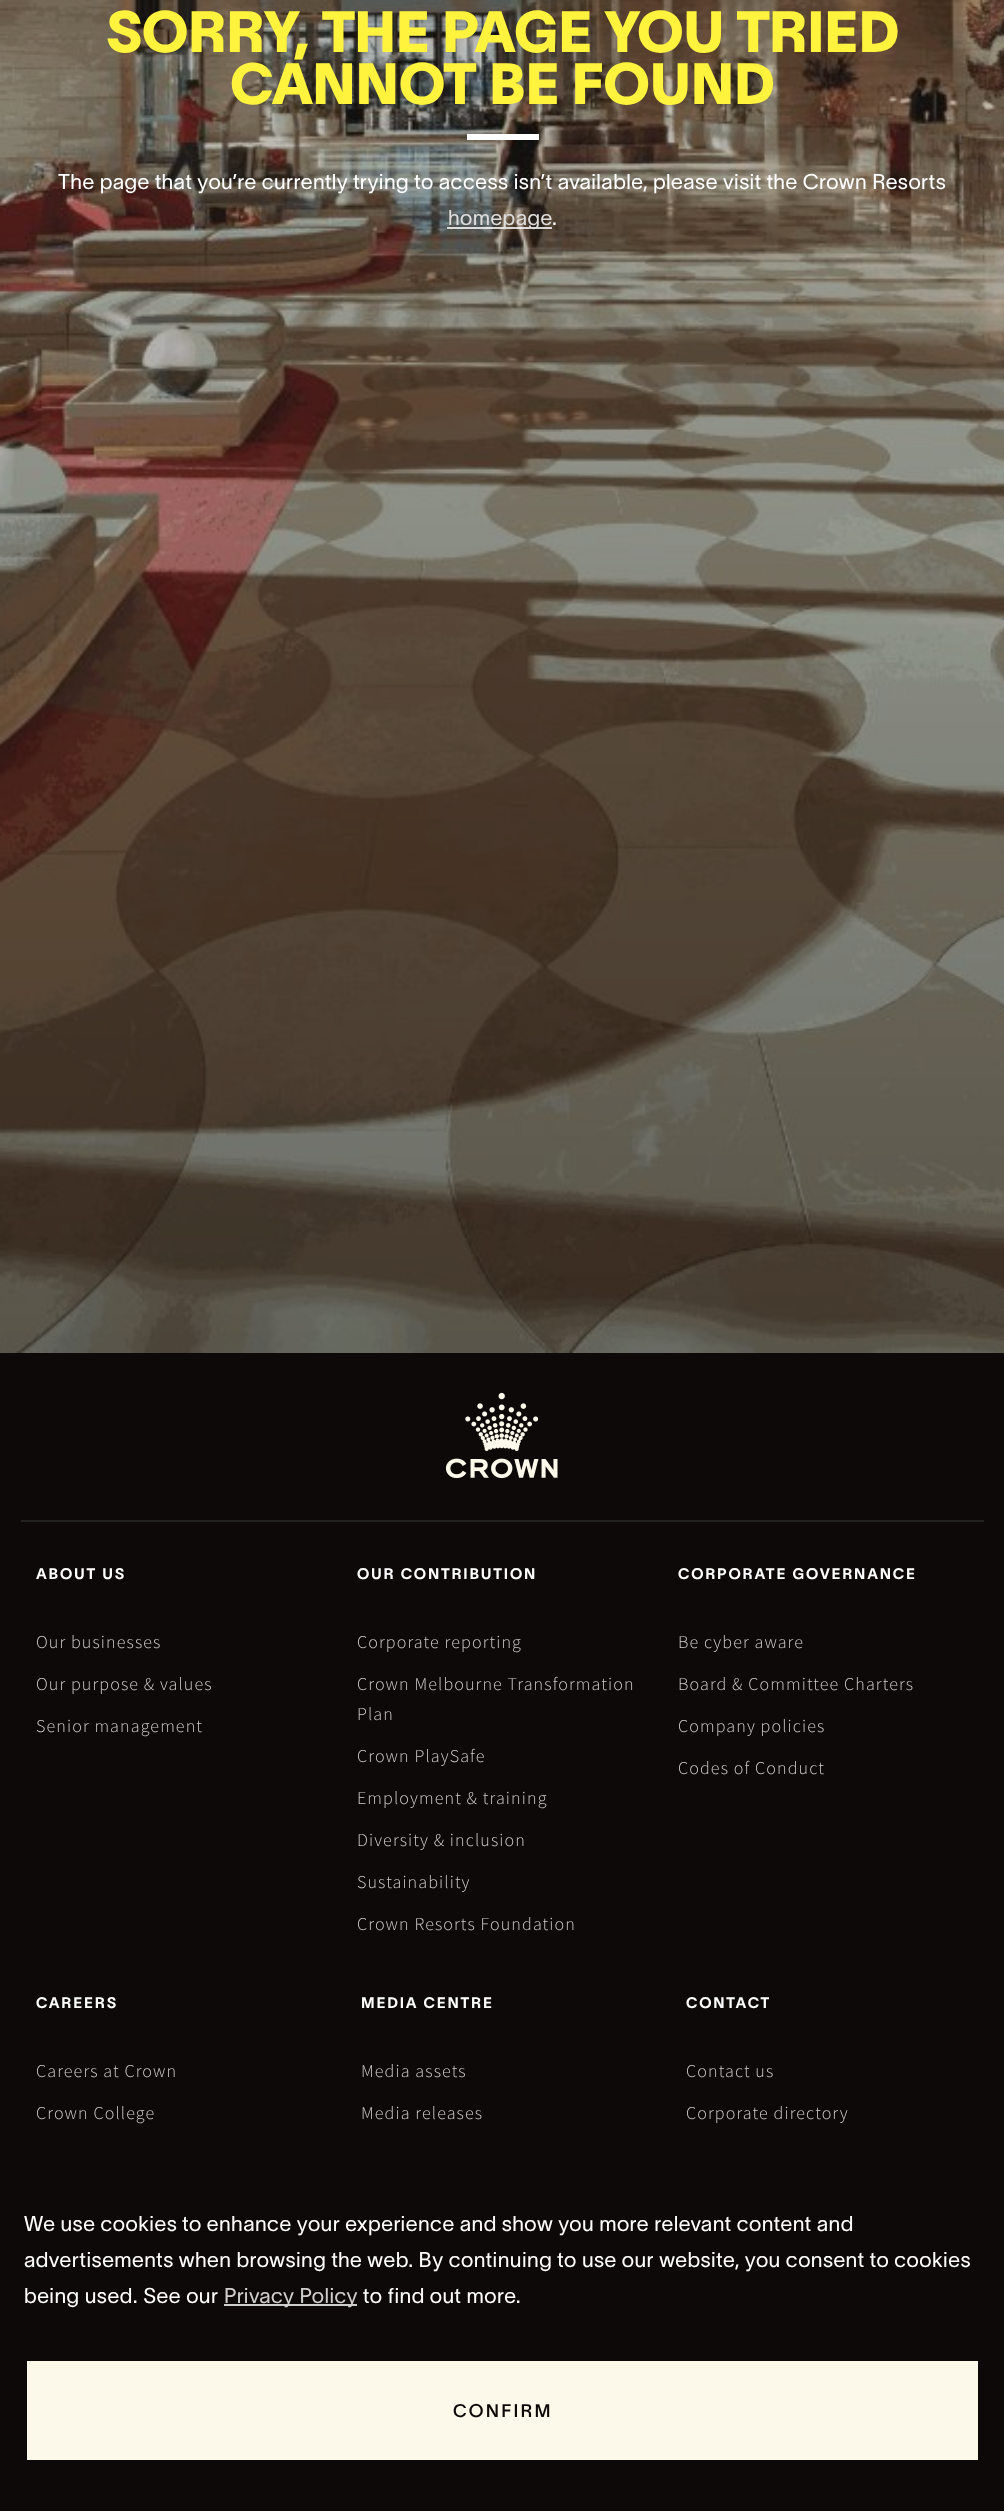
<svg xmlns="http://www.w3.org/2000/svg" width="1004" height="2511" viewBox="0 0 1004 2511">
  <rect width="100%" height="100%" fill="rgb(14,9,9)"/>
  <image x="0" y="0" width="1004" height="1353" href="pic1.png"/>
  <g font-family="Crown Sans" font-size="57" font-weight="900" letter-spacing="-0.6" fill="rgb(255,243,62)">
    <text x="106" y="52">SORRY, THE PAGE YOU TRIED</text>
    <text x="230" y="104">CANNOT BE FOUND</text>
  </g>
  <rect x="467" y="135" width="72" height="6" fill="rgba(0,0,0,0.3)" filter="blur(3px)"/>
  <rect x="467" y="134" width="72" height="6" fill="rgb(255,255,255)"/>
  <text x="58" y="189" font-family="Crown Sans" font-size="21" font-weight="300" letter-spacing="0.42" fill="rgb(255,255,255)">The page that you’re currently trying to access isn’t available, please visit the Crown Resorts</text>
  <rect x="447" y="227" width="105" height="2" fill="rgba(255,255,255,0.8)"/>
  <text x="448" y="225" font-family="Crown Sans" font-size="21" font-weight="300" letter-spacing="0.42" fill="rgb(222,221,220)">homepage</text>
  <text x="552" y="225" font-family="Crown Sans" font-size="21" font-weight="300" letter-spacing="0.42" fill="rgb(255,255,255)">.</text>
  <image x="446" y="1392" width="112" height="87" href="pic2.png"/>
  <rect x="21" y="1520" width="963" height="2" fill="rgb(34,34,34)"/>
  <text x="36" y="1579" font-family="Crown Sans" font-size="15" font-weight="bold" letter-spacing="1.8" fill="rgb(255,255,255)">ABOUT US</text>
  <g font-family="Source Sans Pro" font-size="18" font-weight="300" letter-spacing="1.1" fill="rgb(207,206,206)">
    <text x="36" y="1648">Our businesses</text>
    <text x="36" y="1690">Our purpose &amp; values</text>
    <text x="36" y="1732">Senior management</text>
  </g>
  <text x="357" y="1579" font-family="Crown Sans" font-size="15" font-weight="bold" letter-spacing="1.8" fill="rgb(255,255,255)">OUR CONTRIBUTION</text>
  <g font-family="Source Sans Pro" font-size="18" font-weight="300" letter-spacing="1.1" fill="rgb(207,206,206)">
    <text x="357" y="1648">Corporate reporting</text>
    <text>
      <tspan x="357" y="1690">Crown Melbourne Transformation</tspan>
      <tspan x="357" y="1720">Plan</tspan>
    </text>
    <text x="357" y="1762">Crown PlaySafe</text>
    <text x="357" y="1804">Employment &amp; training</text>
    <text x="357" y="1846">Diversity &amp; inclusion</text>
    <text x="357" y="1888">Sustainability</text>
    <text x="357" y="1930">Crown Resorts Foundation</text>
  </g>
  <text x="678" y="1579" font-family="Crown Sans" font-size="15" font-weight="bold" letter-spacing="1.8" fill="rgb(255,255,255)">CORPORATE GOVERNANCE</text>
  <g font-family="Source Sans Pro" font-size="18" font-weight="300" letter-spacing="1.1" fill="rgb(207,206,206)">
    <text x="678" y="1648">Be cyber aware</text>
    <text x="678" y="1690">Board &amp; Committee Charters</text>
    <text x="678" y="1732">Company policies</text>
    <text x="678" y="1774">Codes of Conduct</text>
  </g>
  <text x="36" y="2008" font-family="Crown Sans" font-size="15" font-weight="bold" letter-spacing="1.8" fill="rgb(255,255,255)">CAREERS</text>
  <g font-family="Source Sans Pro" font-size="18" font-weight="300" letter-spacing="1.1" fill="rgb(207,206,206)">
    <text x="36" y="2077">Careers at Crown</text>
    <text x="36" y="2119">Crown College</text>
  </g>
  <text x="361" y="2008" font-family="Crown Sans" font-size="15" font-weight="bold" letter-spacing="1.8" fill="rgb(255,255,255)">MEDIA CENTRE</text>
  <g font-family="Source Sans Pro" font-size="18" font-weight="300" letter-spacing="1.1" fill="rgb(207,206,206)">
    <text x="361" y="2077">Media assets</text>
    <text x="361" y="2119">Media releases</text>
  </g>
  <text x="686" y="2008" font-family="Crown Sans" font-size="15" font-weight="bold" letter-spacing="1.8" fill="rgb(255,255,255)">CONTACT</text>
  <g font-family="Source Sans Pro" font-size="18" font-weight="300" letter-spacing="1.1" fill="rgb(207,206,206)">
    <text x="686" y="2077">Contact us</text>
    <text x="686" y="2119">Corporate directory</text>
  </g>
  <g font-family="Crown Sans" font-size="21" font-weight="300" letter-spacing="0.42" fill="rgb(255,255,255)">
    <text>
      <tspan x="24" y="2231">We use cookies to enhance your experience and show you more relevant content and</tspan>
      <tspan x="24" y="2267">advertisements when browsing the web. By continuing to use our website, you consent to cookies</tspan>
      <tspan x="24" y="2303">being used. See our</tspan>
    </text>
  </g>
  <rect x="224" y="2304" width="133" height="2" fill="rgb(207,206,206)"/>
  <text x="224" y="2303" font-family="Crown Sans" font-size="21" font-weight="300" letter-spacing="0.42" fill="rgb(207,206,206)">Privacy Policy</text>
  <text x="363" y="2303" font-family="Crown Sans" font-size="21" font-weight="300" letter-spacing="0.42" fill="rgb(255,255,255)">to find out more.</text>
  <rect x="27" y="2361" width="951" height="99" fill="rgb(252,248,234)"/>
  <text x="453" y="2417" font-family="Crown Sans" font-size="18" font-weight="500" letter-spacing="2.25" fill="rgb(14,9,9)">CONFIRM</text>
</svg>
